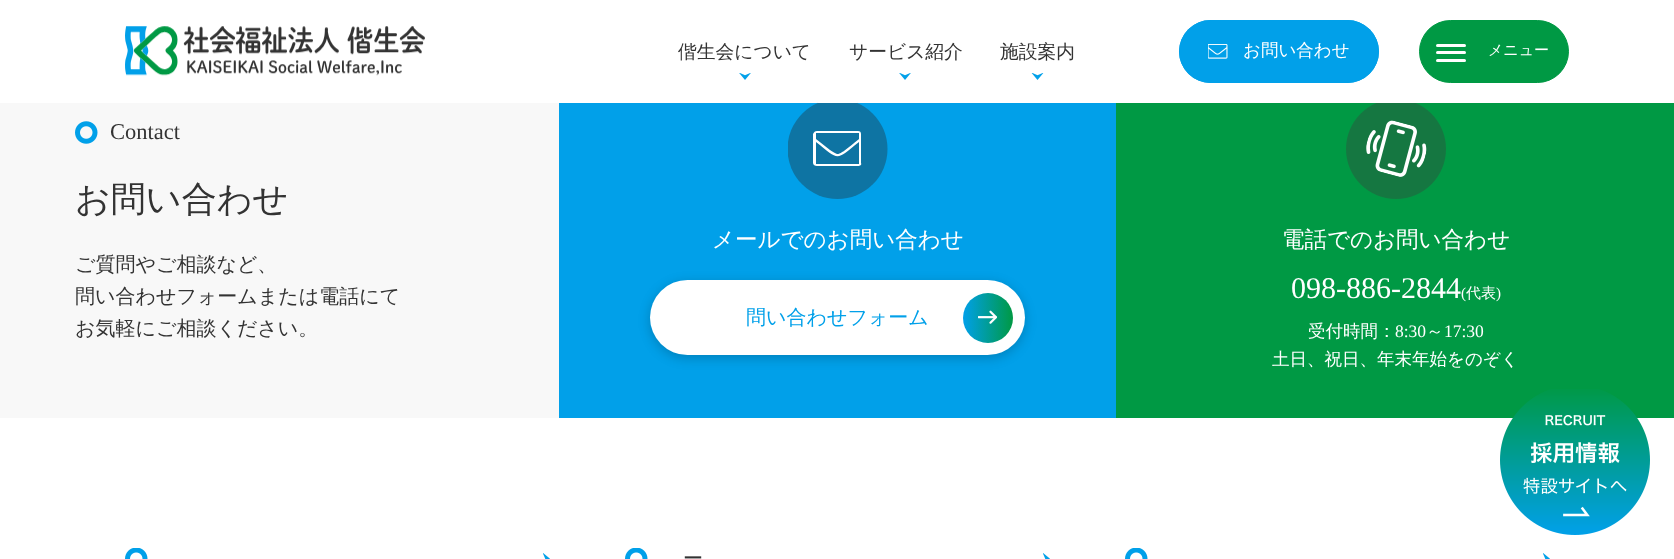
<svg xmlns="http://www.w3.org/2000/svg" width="1674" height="559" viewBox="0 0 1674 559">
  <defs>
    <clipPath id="clip1"><rect x="788" y="99" width="100" height="100"/></clipPath>
    <linearGradient id="g1" gradientUnits="userSpaceOnUse" x1="963" y1="318" x2="1013" y2="318"><stop offset="0" stop-color="rgb(1,160,233)"/><stop offset="1" stop-color="rgb(0,153,68)"/></linearGradient>
  </defs>
  <rect width="100%" height="100%" fill="rgb(255,255,255)"/>
  <rect x="559" y="103" width="557" height="315" fill="rgb(1,160,233)"/>
  <g clip-path="url(#clip1)">
    <circle cx="837.5" cy="149" r="50" fill="rgb(14,116,163)"/>
  </g>
  <rect x="818" y="99" width="39" height="4" fill="rgb(255,255,255)"/>
  <image x="739" y="73" width="12" height="7" href="pic1.png"/>
  <text x="678" y="58" font-family="WenQuanYi Zen Hei" font-size="18.75" font-weight="500" fill="rgb(51,51,51)">偕生会について</text>
  <image x="899" y="73" width="12" height="7" href="pic1.png"/>
  <text x="849" y="58" font-family="WenQuanYi Zen Hei" font-size="18.75" font-weight="500" fill="rgb(51,51,51)">サービス紹介</text>
  <image x="1031" y="73" width="13" height="7" href="pic2.png"/>
  <text x="1000" y="58" font-family="WenQuanYi Zen Hei" font-size="18.75" font-weight="500" fill="rgb(51,51,51)">施設案内</text>
  <image x="125" y="26" width="300" height="50" href="pic3.png"/>
  <rect x="1179" y="20" width="200" height="63" rx="31.5" fill="rgb(1,160,233)"/>
  <image x="1208" y="44" width="20" height="15" href="pic4.png"/>
  <rect x="1179.5" y="20.5" width="199" height="62" rx="31" fill="none" stroke="rgb(1,160,233)"/>
  <text x="1243" y="56" font-family="WenQuanYi Zen Hei" font-size="17.5" font-weight="500" fill="rgb(255,255,255)">お問い合わせ</text>
  <rect x="1419.5" y="20.5" width="149" height="62" rx="31" fill="rgb(0,153,68)" stroke="rgb(0,153,68)"/>
  <rect x="1436" y="44" width="30" height="3" rx="1.5" fill="rgb(255,255,255)"/>
  <text x="1488" y="55" font-family="WenQuanYi Zen Hei" font-size="15" font-weight="500" fill="rgb(255,255,255)">メニュー</text>
  <rect x="1436" y="51" width="30" height="3" rx="1.5" fill="rgb(255,255,255)"/>
  <rect x="1436" y="59" width="30" height="3" rx="1.5" fill="rgb(255,255,255)"/>
  <rect x="0" y="103" width="559" height="315" fill="rgb(248,248,248)"/>
  <image x="75" y="121" width="23" height="23" href="pic5.png"/>
  <text x="110" y="139" font-family="Liberation Serif" font-size="22.5" fill="rgb(51,51,51)">Contact</text>
  <text x="75" y="211" font-family="WenQuanYi Zen Hei" font-size="35" font-weight="500" fill="rgb(51,51,51)">お問い合わせ</text>
  <g font-family="WenQuanYi Zen Hei" font-size="20" font-weight="500" fill="rgb(51,51,51)">
    <text>
      <tspan x="75" y="271">ご質問やご相談など、</tspan>
      <tspan x="75" y="303">問い合わせフォームまたは電話にて</tspan>
      <tspan x="75" y="335">お気軽にご相談ください。</tspan>
    </text>
  </g>
  <path d="M858 131H817C815 131 814 132 813 134V163C813 165 815 166 817 166H858C860 166 862 165 861 163V134C861 132 860 131 858 131ZM859 164H816V142C840 161 835 161 859 142ZM859 139C855 142 841 155 837 154C834 153 832 151 830 150L816 139V133H859Z" fill="rgb(255,255,255)"/>
  <text x="712" y="247" font-family="WenQuanYi Zen Hei" font-size="22.5" font-weight="500" fill="rgb(255,255,255)">メールでのお問い合わせ</text>
  <rect x="650" y="283" width="375" height="75" rx="37.5" fill="rgba(0,0,0,0.2)" filter="blur(6px)"/>
  <rect x="650" y="280" width="375" height="75" rx="37.5" fill="rgb(255,255,255)"/>
  <text x="746" y="324" font-family="WenQuanYi Zen Hei" font-size="20" font-weight="500" fill="rgb(1,160,233)">問い合わせフォーム</text>
  <circle cx="988" cy="318" r="25" fill="url(#g1)"/>
  <image x="978" y="310" width="19" height="14" href="pic6.png"/>
  <rect x="1116" y="103" width="558" height="315" fill="rgb(0,153,68)"/>
  <image x="1346" y="103" width="100" height="96" href="pic7.png"/>
  <text x="1282" y="247" font-family="WenQuanYi Zen Hei" font-size="22.5" font-weight="500" fill="rgb(255,255,255)">電話でのお問い合わせ</text>
  <text x="1291" y="298" font-family="Liberation Serif" font-size="30" fill="rgb(255,255,255)">098-886-2844</text>
  <text x="1461" y="298" font-family="Liberation Serif" font-size="15" fill="rgb(255,255,255)">(</text>
  <text x="1466" y="298" font-family="WenQuanYi Zen Hei" font-size="15" font-weight="500" fill="rgb(255,255,255)">代表</text>
  <text x="1496" y="298" font-family="Liberation Serif" font-size="15" fill="rgb(255,255,255)">)</text>
  <text x="1308" y="337" font-family="WenQuanYi Zen Hei" font-size="17.5" font-weight="500" fill="rgb(255,255,255)">受付時間：</text>
  <text x="1395" y="337" font-family="Liberation Serif" font-size="17.5" fill="rgb(255,255,255)">8:30</text>
  <text x="1426" y="337" font-family="WenQuanYi Zen Hei" font-size="17.5" font-weight="500" fill="rgb(255,255,255)">～</text>
  <text x="1444" y="337" font-family="Liberation Serif" font-size="17.5" fill="rgb(255,255,255)">17:30</text>
  <text x="1272" y="365" font-family="WenQuanYi Zen Hei" font-size="17.5" font-weight="500" fill="rgb(255,255,255)">土日、祝日、年末年始をのぞく</text>
  <image x="543" y="553" width="7" height="6" href="pic8.png"/>
  <image x="125" y="548" width="23" height="11" href="pic9.png"/>
  <image x="1043" y="553" width="7" height="6" href="pic8.png"/>
  <image x="625" y="548" width="23" height="11" href="pic9.png"/>
  <text x="683" y="565" font-family="WenQuanYi Zen Hei" font-size="20" font-weight="500" fill="rgb(51,51,51)">ー</text>
  <image x="1543" y="553" width="7" height="6" href="pic8.png"/>
  <image x="1125" y="548" width="23" height="11" href="pic9.png"/>
  <image x="1500" y="389" width="150" height="146" href="pic10.png"/>
</svg>
